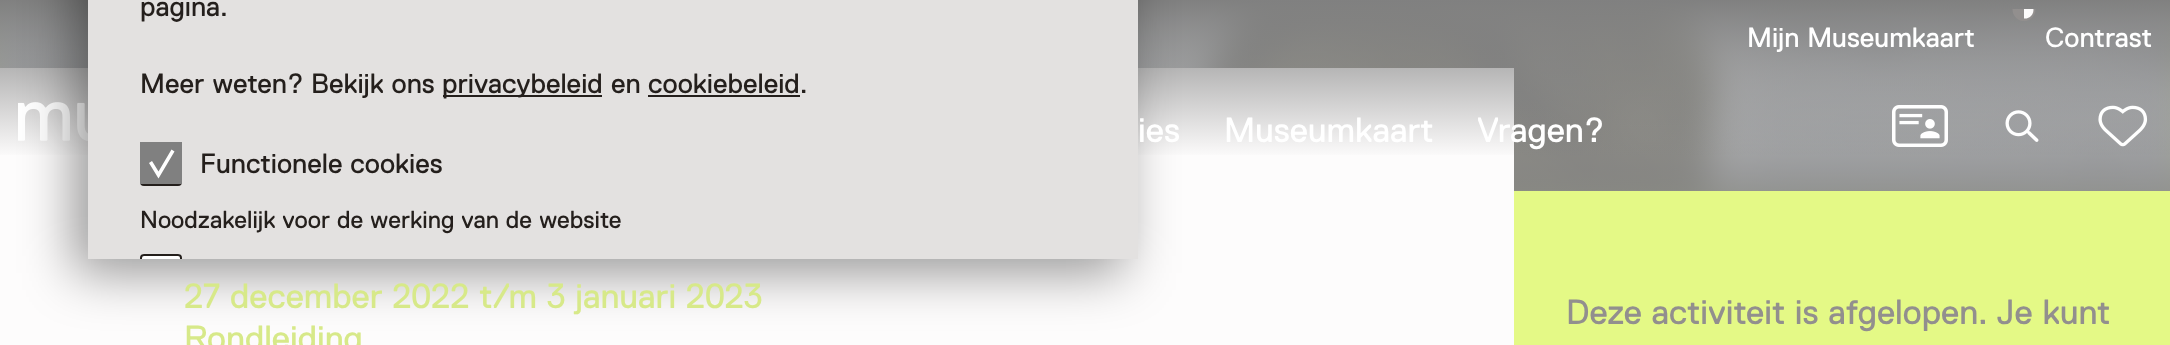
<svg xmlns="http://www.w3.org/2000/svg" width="2170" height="345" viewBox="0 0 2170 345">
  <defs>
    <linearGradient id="g1" gradientUnits="userSpaceOnUse" x1="1085" y1="191" x2="1085" y2="-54"><stop offset="0" stop-color="rgb(128,128,128)" stop-opacity="0.8"/><stop offset="1" stop-color="rgb(128,128,128)" stop-opacity="0"/></linearGradient>
    <linearGradient id="g2" gradientUnits="userSpaceOnUse" x1="1085" y1="0" x2="1085" y2="158"><stop offset="0" stop-color="rgb(128,128,128)"/><stop offset="1" stop-color="rgb(128,128,128)" stop-opacity="0"/></linearGradient>
    <clipPath id="clip1"><rect x="88" y="0" width="1050" height="259"/></clipPath>
    <clipPath id="clip2"><rect x="1993" y="9" width="60" height="59"/></clipPath>
  </defs>
  <rect width="100%" height="100%" fill="rgb(255,255,255)"/>
  <rect x="-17" y="-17" width="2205" height="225" fill="rgb(228,249,134)" filter="blur(17.5px)"/>
  <image x="0" y="1" width="2170" height="190" href="pic5.png"/>
  <rect x="0" y="1" width="2170" height="190" fill="url(#g1)"/>
  <rect x="0" y="68" width="1514" height="277" fill="rgb(253,252,252)"/>
  <rect x="0" y="0" width="2170" height="155" fill="url(#g2)"/>
  <image x="18" y="102" width="70" height="40" href="pic1.png"/>
  <rect x="74" y="-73" width="1050" height="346" fill="rgba(0,0,0,0.4)" filter="blur(26px)"/>
  <rect x="88" y="0" width="1050" height="259" fill="rgb(227,225,224)"/>
  <g font-family="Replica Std" font-size="28" fill="rgb(36,31,28)">
    <text x="140" y="16">pagina.</text>
    <text x="140" y="93" word-spacing="0.5">Meer weten? Bekijk ons</text>
  </g>
  <rect x="443" y="95" width="159" height="2" fill="rgb(36,31,28)"/>
  <g font-family="Replica Std" font-size="28" fill="rgb(36,31,28)">
    <text x="442" y="93">privacybeleid</text>
    <text x="611" y="93">en</text>
    <text x="648" y="93">cookiebeleid.</text>
  </g>
  <rect x="648" y="95" width="152" height="2" fill="rgb(36,31,28)"/>
  <rect x="141" y="145" width="40" height="40" rx="3" fill="none" stroke="rgb(36,31,28)" stroke-width="2"/>
  <rect x="140" y="142" width="42" height="42" fill="rgb(128,128,128)"/>
  <path d="M158.5 178.5L149 163L152 161L158.5 171.5L171.5 149.5L174.5 151.5Z" fill="rgb(255,255,255)"/>
  <text x="200" y="173" word-spacing="0.5" font-family="Replica Std" font-size="28" fill="rgb(36,31,28)">Functionele cookies</text>
  <text x="140" y="228" word-spacing="0.5" font-family="Replica Std" font-size="24.5" fill="rgb(36,31,28)">Noodzakelijk voor de werking van de website</text>
  <path d="M144 254H178C180 254 182 256 182 258V259H140V258C140 256 142 254 144 254Z" fill="rgb(255,255,255)"/>
  <g clip-path="url(#clip1)">
    <rect x="141" y="255" width="40" height="40" rx="3" fill="none" stroke="rgb(36,31,28)" stroke-width="2"/>
  </g>
  <text x="1747" y="47" word-spacing="0.5" font-family="Replica Std" font-size="28" fill="rgb(255,255,255)">Mijn Museumkaart</text>
  <g clip-path="url(#clip2)">
    <circle cx="2024" cy="9.5" r="11.5" fill="rgb(146,143,142)"/>
    <path d="M2024.5 18.5H2024V.5C2036.5 .5 2036.5 18.5 2024.5 18.5Z" fill="rgb(253,252,252)"/>
  </g>
  <text x="2045" y="47" font-family="Replica Std" font-size="28" fill="rgb(255,255,255)">Contrast</text>
  <image x="1892" y="105" width="56" height="42" href="pic2.png"/>
  <image x="2005" y="110" width="34" height="32" href="pic3.png"/>
  <image x="2098" y="105" width="50" height="42" href="pic4.png"/>
  <g font-family="Replica Std" font-size="35" fill="rgb(255,255,255)">
    <text x="1138" y="142">ies</text>
    <text x="1224" y="142">Museumkaart</text>
    <text x="1477" y="142">Vragen?</text>
  </g>
  <g font-family="Replica Std" font-size="35" fill="rgb(215,233,137)">
    <text>
      <tspan x="184" y="308" word-spacing="0.5">27 december 2022 t/m 3 januari 2023</tspan>
      <tspan x="184" y="350">Rondleiding</tspan>
    </text>
  </g>
  <rect x="1514" y="191" width="656" height="154" fill="rgb(228,249,134)"/>
  <text x="1566" y="324" word-spacing="0.5" font-family="Replica Std" font-size="35" fill="rgb(146,143,142)">Deze activiteit is afgelopen. Je kunt</text>
</svg>
